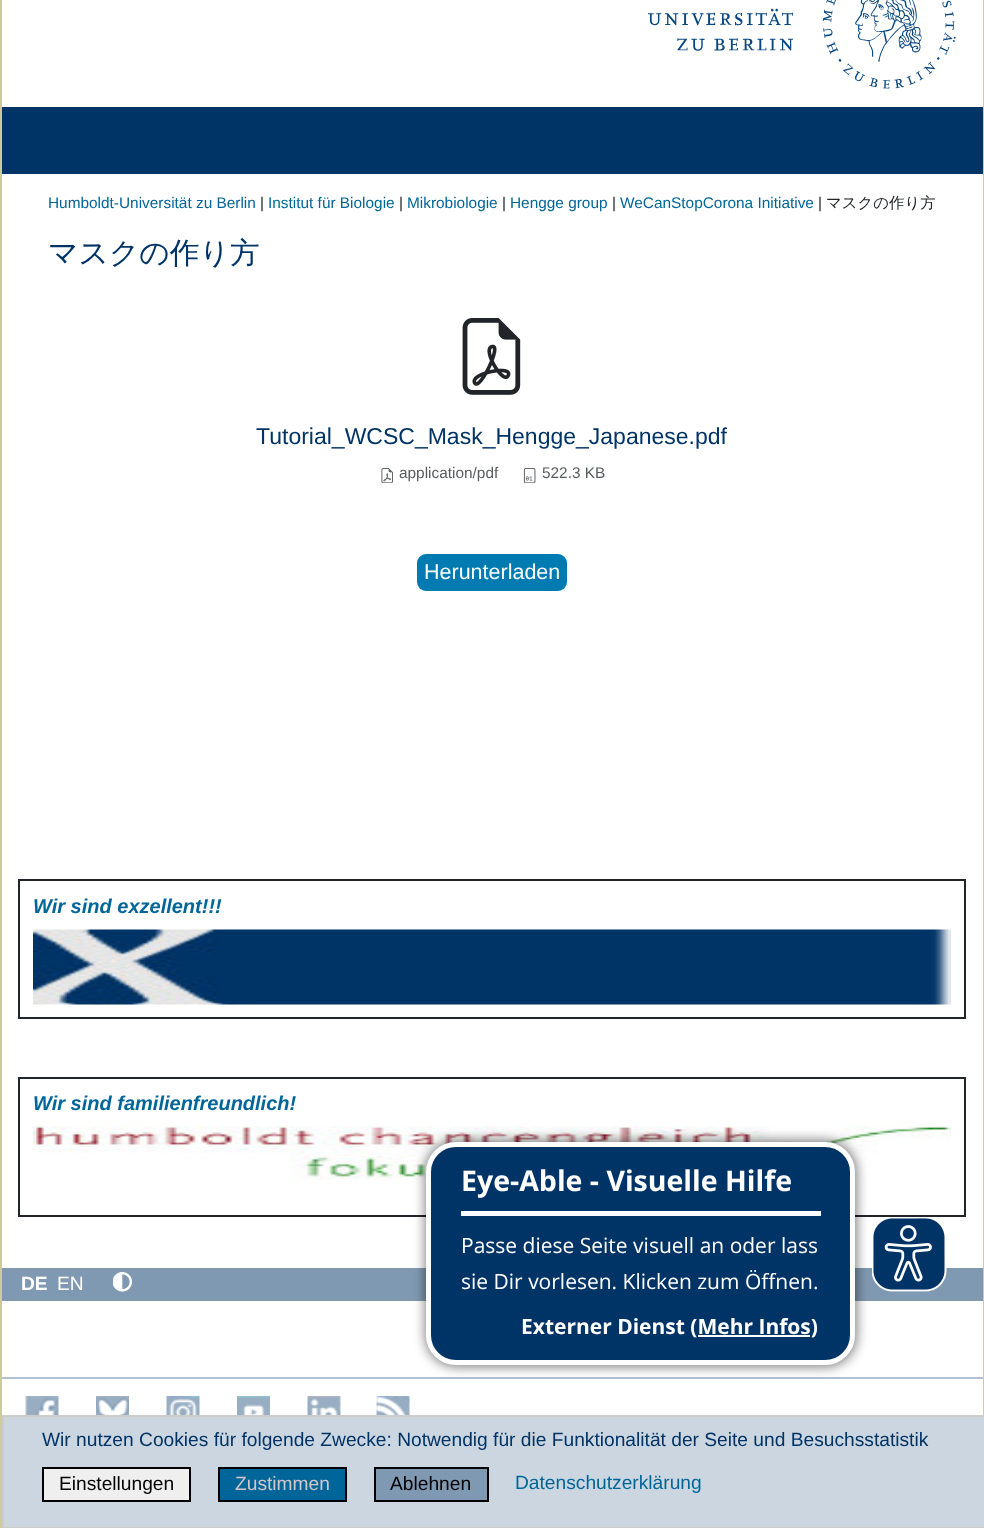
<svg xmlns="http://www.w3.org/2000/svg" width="984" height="1528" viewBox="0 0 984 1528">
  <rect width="100%" height="100%" fill="rgb(255,255,255)"/>
  <image x="648" y="0" width="308" height="89" href="pic1.png"/>
  <rect x="2" y="107" width="981" height="67" fill="rgb(0,51,102)"/>
  <rect x="983" y="0" width="1" height="1415" fill="rgb(204,204,153)"/>
  <rect x="0" y="0" width="2" height="1528" fill="rgb(204,204,153)"/>
  <text x="48" y="208" font-family="Liberation Sans" font-size="15.4" fill="rgb(0,102,153)">Humboldt-Universität zu Berlin</text>
  <text x="260" y="208" font-family="Liberation Sans" font-size="15.4" fill="rgb(33,37,41)">|</text>
  <text x="268" y="208" font-family="Liberation Sans" font-size="15.4" fill="rgb(0,102,153)">Institut für Biologie</text>
  <text x="399" y="208" font-family="Liberation Sans" font-size="15.4" fill="rgb(33,37,41)">|</text>
  <text x="407" y="208" font-family="Liberation Sans" font-size="15.4" fill="rgb(0,102,153)">Mikrobiologie</text>
  <text x="502" y="208" font-family="Liberation Sans" font-size="15.4" fill="rgb(33,37,41)">|</text>
  <text x="510" y="208" font-family="Liberation Sans" font-size="15.4" fill="rgb(0,102,153)">Hengge group</text>
  <text x="612" y="208" font-family="Liberation Sans" font-size="15.4" fill="rgb(33,37,41)">|</text>
  <text x="620" y="208" font-family="Liberation Sans" font-size="15.4" fill="rgb(0,102,153)">WeCanStopCorona Initiative</text>
  <text x="818" y="208" font-family="Liberation Sans" font-size="15.4" fill="rgb(33,37,41)">|</text>
  <text x="826" y="208" font-family="WenQuanYi Zen Hei" font-size="15.4" font-weight="500" fill="rgb(33,37,41)">マスクの作り方</text>
  <text x="48" y="263" font-family="WenQuanYi Zen Hei" font-size="29.75" font-weight="500" fill="rgb(0,51,102)">マスクの作り方</text>
  <image x="462" y="318" width="59" height="77" href="pic2.png"/>
  <text x="256" y="444" font-family="Liberation Sans" font-size="23" fill="rgb(0,51,102)">Tutorial_WCSC_Mask_Hengge_Japanese.pdf</text>
  <image x="381" y="468" width="12" height="15" href="pic3.png"/>
  <text x="399" y="478" font-family="Liberation Sans" font-size="15.4" fill="rgb(89,92,95)">application/pdf</text>
  <image x="523" y="468" width="13" height="15" href="pic4.png"/>
  <text x="542" y="478" font-family="Liberation Sans" font-size="15.4" fill="rgb(89,92,95)">522.3 KB</text>
  <rect x="417" y="554" width="150" height="37" rx="9" fill="rgb(0,123,177)"/>
  <text x="424" y="579" font-family="Liberation Sans" font-size="21.5" fill="rgb(255,255,255)">Herunterladen</text>
  <rect x="19" y="880" width="946" height="138" fill="none" stroke="rgb(33,37,41)" stroke-width="2"/>
  <text x="33" y="913" font-family="Liberation Sans" font-size="20" font-weight="bold" font-style="italic" fill="rgb(0,102,153)">Wir sind exzellent!!!</text>
  <image x="33" y="929" width="918" height="76" href="pic5.png"/>
  <rect x="19" y="1078" width="946" height="138" fill="none" stroke="rgb(33,37,41)" stroke-width="2"/>
  <text x="33" y="1110" font-family="Liberation Sans" font-size="20" font-weight="bold" font-style="italic" fill="rgb(0,102,153)">Wir sind familienfreundlich!</text>
  <image x="33" y="1126" width="918" height="75" href="pic6.png"/>
  <rect x="2" y="1268" width="981" height="33" fill="rgb(128,153,178)"/>
  <text x="21" y="1290" font-family="Liberation Sans" font-size="19.2" font-weight="bold" fill="rgb(255,255,255)">DE</text>
  <text x="57" y="1290" font-family="Liberation Sans" font-size="19.2" fill="rgb(255,255,255)">EN</text>
  <image x="113" y="1272" width="19" height="20" href="pic7.png"/>
  <rect x="2" y="1377" width="981" height="2" fill="rgb(178,193,209)"/>
  <rect x="425" y="1140" width="432" height="227" rx="32" fill="rgba(0,0,0,0.5)" filter="blur(6px)"/>
  <rect x="428.5" y="1144.5" width="424" height="218" rx="27.5" fill="rgb(0,51,102)" stroke="rgb(255,255,255)" stroke-width="5"/>
  <rect x="461" y="1211" width="360" height="5" fill="rgb(255,255,255)"/>
  <text x="461" y="1191" font-family="Open Sans" font-size="28.5" font-weight="bold" fill="rgb(255,255,255)">Eye-Able - Visuelle Hilfe</text>
  <g font-family="Open Sans" font-size="21" fill="rgb(255,255,255)">
    <text>
      <tspan x="461" y="1253">Passe diese Seite visuell an oder lass</tspan>
      <tspan x="461" y="1289">sie Dir vorlesen. Klicken zum Öffnen.</tspan>
    </text>
  </g>
  <text x="521" y="1334" font-family="Open Sans" font-size="21" font-weight="bold" fill="rgb(255,255,255)">Externer Dienst (Mehr Infos)</text>
  <rect x="698" y="1335" width="112" height="2" fill="rgb(255,255,255)"/>
  <image x="872" y="1218" width="75" height="74" href="pic8.png"/>
  <image x="25" y="1396" width="34" height="19" href="pic9.png"/>
  <image x="96" y="1396" width="33" height="19" href="pic10.png"/>
  <image x="166" y="1396" width="34" height="19" href="pic11.png"/>
  <image x="237" y="1396" width="33" height="19" href="pic12.png"/>
  <image x="307" y="1396" width="34" height="19" href="pic13.png"/>
  <image x="376" y="1396" width="34" height="19" href="pic14.png"/>
  <rect x="3" y="1416" width="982" height="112" fill="rgb(204,214,224)" stroke="rgb(204,204,204)" stroke-width="2"/>
  <text x="42" y="1446" font-family="Liberation Sans" font-size="19.2" fill="rgb(0,51,102)">Wir nutzen Cookies für folgende Zwecke: Notwendig für die Funktionalität der Seite und Besuchsstatistik</text>
  <rect x="43" y="1468" width="147" height="33" fill="rgb(239,239,239)" stroke="rgb(0,0,0)" stroke-width="2"/>
  <text x="59" y="1490" font-family="Liberation Sans" font-size="19.2" fill="rgb(0,0,0)">Einstellungen</text>
  <rect x="219" y="1468" width="127" height="33" fill="rgb(0,102,153)" stroke="rgb(0,0,0)" stroke-width="2"/>
  <text x="235" y="1490" font-family="Liberation Sans" font-size="19.2" fill="rgb(213,199,199)">Zustimmen</text>
  <rect x="375" y="1468" width="113" height="33" fill="rgb(128,153,178)" stroke="rgb(0,0,0)" stroke-width="2"/>
  <text x="390" y="1490" font-family="Liberation Sans" font-size="19.2" fill="rgb(0,0,0)">Ablehnen</text>
  <text x="515" y="1489" font-family="Liberation Sans" font-size="19.2" fill="rgb(0,102,153)">Datenschutzerklärung</text>
</svg>
